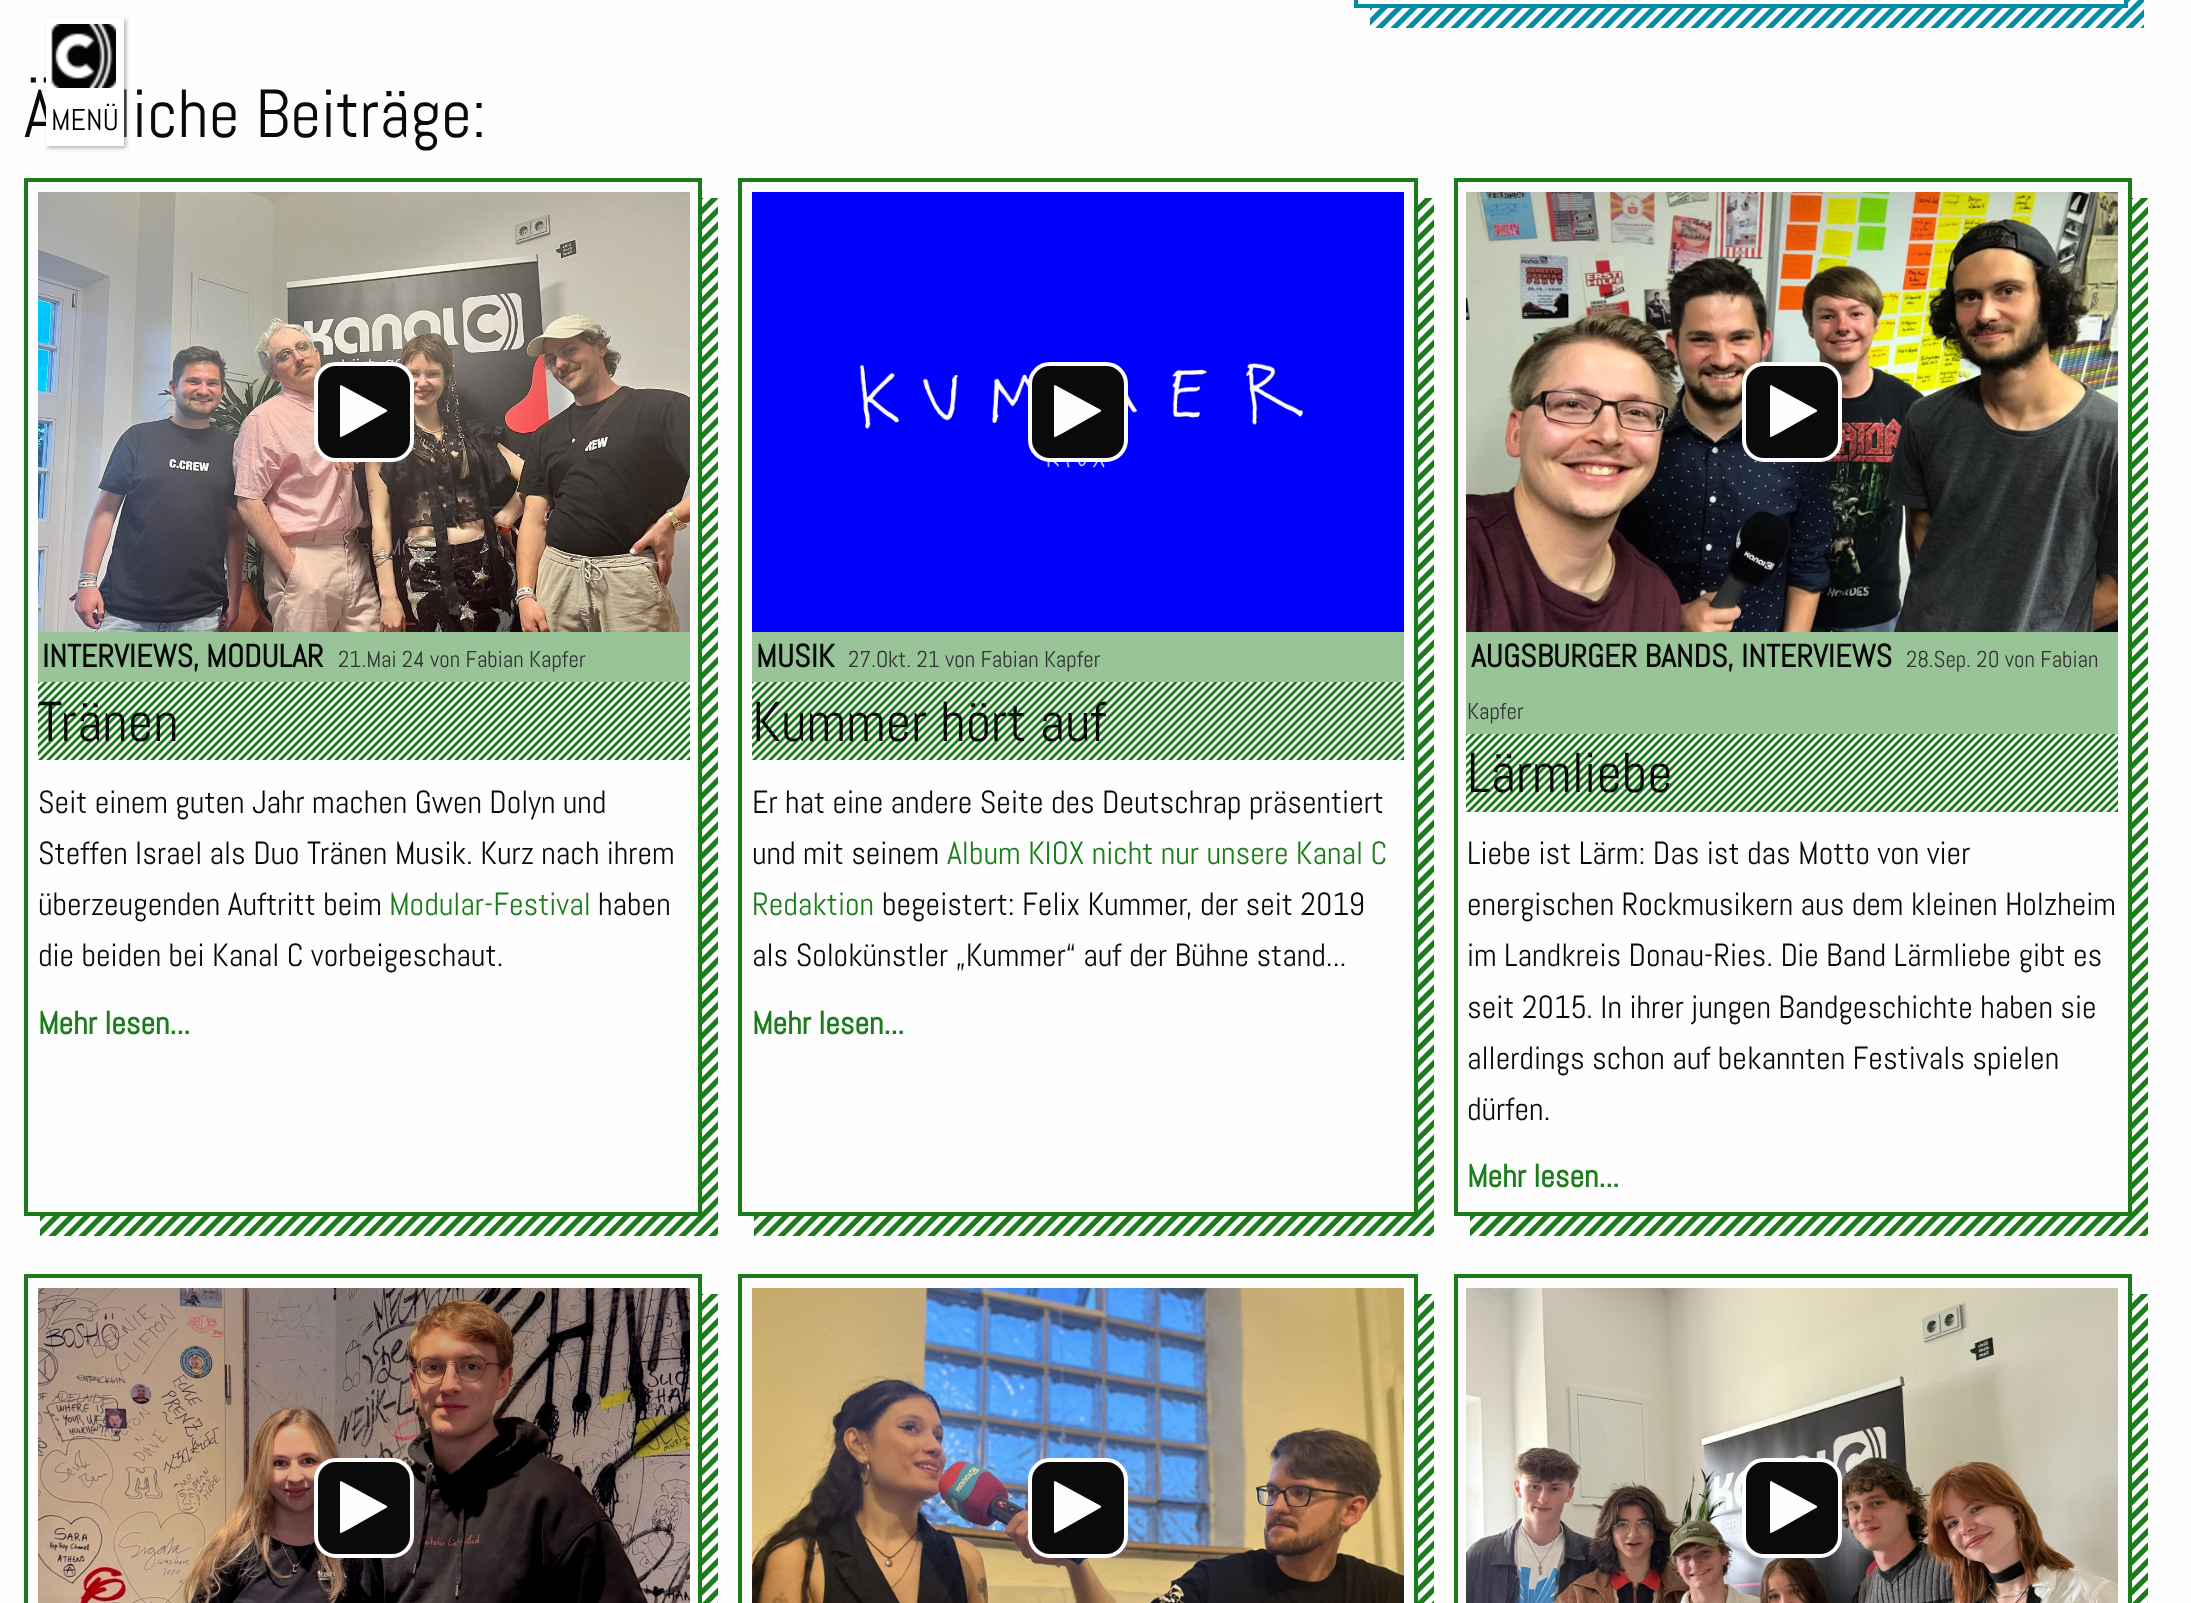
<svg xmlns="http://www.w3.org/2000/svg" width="2191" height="1603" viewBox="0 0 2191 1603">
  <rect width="100%" height="100%" fill="rgb(254,254,254)"/>
  <image x="1370" y="0" width="774" height="28" href="pic1.png"/>
  <rect x="1370" y="0" width="758" height="4" fill="rgb(254,254,254)"/>
  <rect x="1356" y="-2" width="770" height="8" fill="none" stroke="rgb(4,139,168)" stroke-width="4"/>
  <g font-family="Abel" font-size="68" fill="rgb(10,10,10)">
    <text x="24" y="137">Ä</text>
    <text x="117" y="137">liche Beiträge:</text>
  </g>
  <image x="40" y="198" width="678" height="1038" href="pic5.png"/>
  <rect x="40" y="198" width="658" height="1014" fill="rgb(254,254,254)"/>
  <rect x="24" y="178" width="678" height="4" fill="rgb(28,124,28)"/>
  <rect x="698" y="178" width="4" height="1038" fill="rgb(28,124,28)"/>
  <rect x="24" y="178" width="4" height="454" fill="rgb(28,124,28)"/>
  <image x="38" y="192" width="652" height="440" href="pic2.png"/>
  <rect x="316" y="364" width="96" height="96" rx="20" fill="rgb(10,10,10)" stroke="rgb(254,254,254)" stroke-width="4"/>
  <path d="M386 412L349 433C341 437 340 438 340 436V386L341 385L387 410C387 411 387 412 386 412Z" fill="rgb(254,254,254)"/>
  <image x="754" y="198" width="680" height="1038" href="pic6.png"/>
  <rect x="754" y="198" width="660" height="1014" fill="rgb(254,254,254)"/>
  <rect x="738" y="178" width="680" height="4" fill="rgb(28,124,28)"/>
  <rect x="1414" y="178" width="4" height="1038" fill="rgb(28,124,28)"/>
  <rect x="738" y="178" width="4" height="454" fill="rgb(28,124,28)"/>
  <image x="752" y="192" width="652" height="440" href="pic3.png"/>
  <rect x="1030" y="364" width="96" height="96" rx="20" fill="rgb(10,10,10)" stroke="rgb(254,254,254)" stroke-width="4"/>
  <path d="M1100 412L1063 433C1055 437 1054 438 1054 436V386L1055 385L1101 410C1101 411 1101 412 1100 412Z" fill="rgb(254,254,254)"/>
  <image x="1470" y="198" width="678" height="1038" href="pic5.png"/>
  <rect x="1470" y="198" width="658" height="1014" fill="rgb(254,254,254)"/>
  <rect x="1454" y="178" width="678" height="4" fill="rgb(28,124,28)"/>
  <rect x="2128" y="178" width="4" height="1038" fill="rgb(28,124,28)"/>
  <rect x="1454" y="178" width="4" height="454" fill="rgb(28,124,28)"/>
  <image x="1466" y="192" width="652" height="440" href="pic4.png"/>
  <rect x="1744" y="364" width="96" height="96" rx="20" fill="rgb(10,10,10)" stroke="rgb(254,254,254)" stroke-width="4"/>
  <path d="M1816 412L1779 433C1771 437 1770 438 1770 436V386L1771 385L1817 410C1817 411 1817 412 1816 412Z" fill="rgb(254,254,254)"/>
  <rect x="24" y="1212" width="678" height="4" fill="rgb(28,124,28)"/>
  <rect x="24" y="632" width="4" height="584" fill="rgb(28,124,28)"/>
  <rect x="38" y="632" width="652" height="50" fill="rgb(152,196,152)"/>
  <g font-family="Abel" font-size="32" font-weight="bold" fill="rgb(10,10,10)">
    <text x="42" y="667">INTERVIEWS,</text>
    <text x="206" y="667">MODULAR</text>
  </g>
  <text x="338" y="667" font-family="Abel" font-size="23" fill="rgb(51,51,51)">21.Mai 24 von Fabian Kapfer</text>
  <image x="38" y="682" width="652" height="78" href="pic7.png"/>
  <text x="38" y="741" font-family="Abel" font-size="56" fill="rgb(10,10,10)">Tränen</text>
  <g font-family="Abel" font-size="32" fill="rgb(10,10,10)">
    <text>
      <tspan x="38" y="813">Seit einem guten Jahr machen Gwen Dolyn und</tspan>
      <tspan x="38" y="864">Steffen Israel als Duo Tränen Musik. Kurz nach ihrem</tspan>
      <tspan x="38" y="915">überzeugenden Auftritt beim</tspan>
    </text>
  </g>
  <text x="389" y="915" font-family="Abel" font-size="32" fill="rgb(28,124,28)">Modular-Festival</text>
  <g font-family="Abel" font-size="32" fill="rgb(10,10,10)">
    <text x="598" y="915">haben</text>
    <text x="38" y="966">die beiden bei Kanal C vorbeigeschaut.</text>
  </g>
  <text x="38" y="1034" font-family="Abel" font-size="32" font-weight="bold" fill="rgb(28,124,28)">Mehr lesen...</text>
  <rect x="738" y="1212" width="680" height="4" fill="rgb(28,124,28)"/>
  <rect x="738" y="632" width="4" height="584" fill="rgb(28,124,28)"/>
  <rect x="752" y="632" width="652" height="50" fill="rgb(152,196,152)"/>
  <text x="756" y="667" font-family="Abel" font-size="32" font-weight="bold" fill="rgb(10,10,10)">MUSIK</text>
  <text x="848" y="667" font-family="Abel" font-size="23" fill="rgb(51,51,51)">27.Okt. 21 von Fabian Kapfer</text>
  <image x="752" y="682" width="652" height="78" href="pic7.png"/>
  <text x="752" y="741" font-family="Abel" font-size="56" fill="rgb(10,10,10)">Kummer hört auf</text>
  <g font-family="Abel" font-size="32" fill="rgb(10,10,10)">
    <text>
      <tspan x="752" y="813">Er hat eine andere Seite des Deutschrap präsentiert</tspan>
      <tspan x="752" y="864">und mit seinem</tspan>
    </text>
  </g>
  <g font-family="Abel" font-size="32" fill="rgb(28,124,28)">
    <text x="947" y="864">Album KIOX nicht nur unsere Kanal C</text>
    <text x="752" y="915">Redaktion</text>
  </g>
  <g font-family="Abel" font-size="32" fill="rgb(10,10,10)">
    <text x="882" y="915">begeistert: Felix Kummer, der seit 2019</text>
    <text x="752" y="966">als Solokünstler „Kummer“ auf der Bühne stand...</text>
  </g>
  <text x="752" y="1034" font-family="Abel" font-size="32" font-weight="bold" fill="rgb(28,124,28)">Mehr lesen...</text>
  <rect x="1454" y="1212" width="678" height="4" fill="rgb(28,124,28)"/>
  <rect x="1454" y="632" width="4" height="584" fill="rgb(28,124,28)"/>
  <rect x="1466" y="632" width="652" height="102" fill="rgb(152,196,152)"/>
  <g font-family="Abel" font-size="32" font-weight="bold" fill="rgb(10,10,10)">
    <text x="1471" y="667">AUGSBURGER BANDS,</text>
    <text x="1741" y="667">INTERVIEWS</text>
  </g>
  <g font-family="Abel" font-size="23" fill="rgb(51,51,51)">
    <text x="1906" y="667">28.Sep. 20 von Fabian</text>
    <text x="1467" y="719">Kapfer</text>
  </g>
  <image x="1466" y="734" width="652" height="78" href="pic7.png"/>
  <text x="1467" y="792" font-family="Abel" font-size="56" fill="rgb(10,10,10)">Lärmliebe</text>
  <g font-family="Abel" font-size="32" fill="rgb(10,10,10)">
    <text>
      <tspan x="1467" y="864">Liebe ist Lärm: Das ist das Motto von vier</tspan>
      <tspan x="1467" y="915">energischen Rockmusikern aus dem kleinen Holzheim</tspan>
      <tspan x="1467" y="966">im Landkreis Donau-Ries. Die Band Lärmliebe gibt es</tspan>
      <tspan x="1467" y="1018">seit 2015. In ihrer jungen Bandgeschichte haben sie</tspan>
      <tspan x="1467" y="1069">allerdings schon auf bekannten Festivals spielen</tspan>
      <tspan x="1467" y="1120">dürfen.</tspan>
    </text>
  </g>
  <text x="1467" y="1187" font-family="Abel" font-size="32" font-weight="bold" fill="rgb(28,124,28)">Mehr lesen...</text>
  <rect x="24" y="1274" width="678" height="4" fill="rgb(28,124,28)"/>
  <rect x="698" y="1274" width="4" height="329" fill="rgb(28,124,28)"/>
  <rect x="24" y="1274" width="4" height="329" fill="rgb(28,124,28)"/>
  <image x="38" y="1288" width="652" height="315" href="pic8.png"/>
  <rect x="316" y="1460" width="96" height="96" rx="20" fill="rgb(10,10,10)" stroke="rgb(254,254,254)" stroke-width="4"/>
  <path d="M386 1508L349 1529C341 1533 340 1534 340 1532V1482L341 1481L387 1506C387 1507 387 1508 386 1508Z" fill="rgb(254,254,254)"/>
  <image x="702" y="1294" width="16" height="309" href="pic9.png"/>
  <rect x="738" y="1274" width="680" height="4" fill="rgb(28,124,28)"/>
  <rect x="1414" y="1274" width="4" height="329" fill="rgb(28,124,28)"/>
  <rect x="738" y="1274" width="4" height="329" fill="rgb(28,124,28)"/>
  <image x="752" y="1288" width="652" height="315" href="pic10.png"/>
  <rect x="1030" y="1460" width="96" height="96" rx="20" fill="rgb(10,10,10)" stroke="rgb(254,254,254)" stroke-width="4"/>
  <path d="M1100 1508L1063 1529C1055 1533 1054 1534 1054 1532V1482L1055 1481L1101 1506C1101 1507 1101 1508 1100 1508Z" fill="rgb(254,254,254)"/>
  <image x="1418" y="1294" width="16" height="309" href="pic11.png"/>
  <rect x="1454" y="1274" width="678" height="4" fill="rgb(28,124,28)"/>
  <rect x="2128" y="1274" width="4" height="329" fill="rgb(28,124,28)"/>
  <rect x="1454" y="1274" width="4" height="329" fill="rgb(28,124,28)"/>
  <image x="1466" y="1288" width="652" height="315" href="pic12.png"/>
  <rect x="1744" y="1460" width="96" height="96" rx="20" fill="rgb(10,10,10)" stroke="rgb(254,254,254)" stroke-width="4"/>
  <path d="M1816 1508L1779 1529C1771 1533 1770 1534 1770 1532V1482L1771 1481L1817 1506C1817 1507 1817 1508 1816 1508Z" fill="rgb(254,254,254)"/>
  <image x="2132" y="1294" width="16" height="309" href="pic9.png"/>
  <rect x="48" y="20" width="78" height="128" fill="rgba(128,128,128,0.6)" filter="blur(2px)"/>
  <rect x="46" y="18" width="78" height="128" fill="rgb(255,255,255)"/>
  <image x="51" y="24" width="65" height="64" href="pic13.png"/>
  <text x="51" y="130" font-family="Abel" font-size="30" fill="rgb(0,0,0)">MENÜ</text>
</svg>
